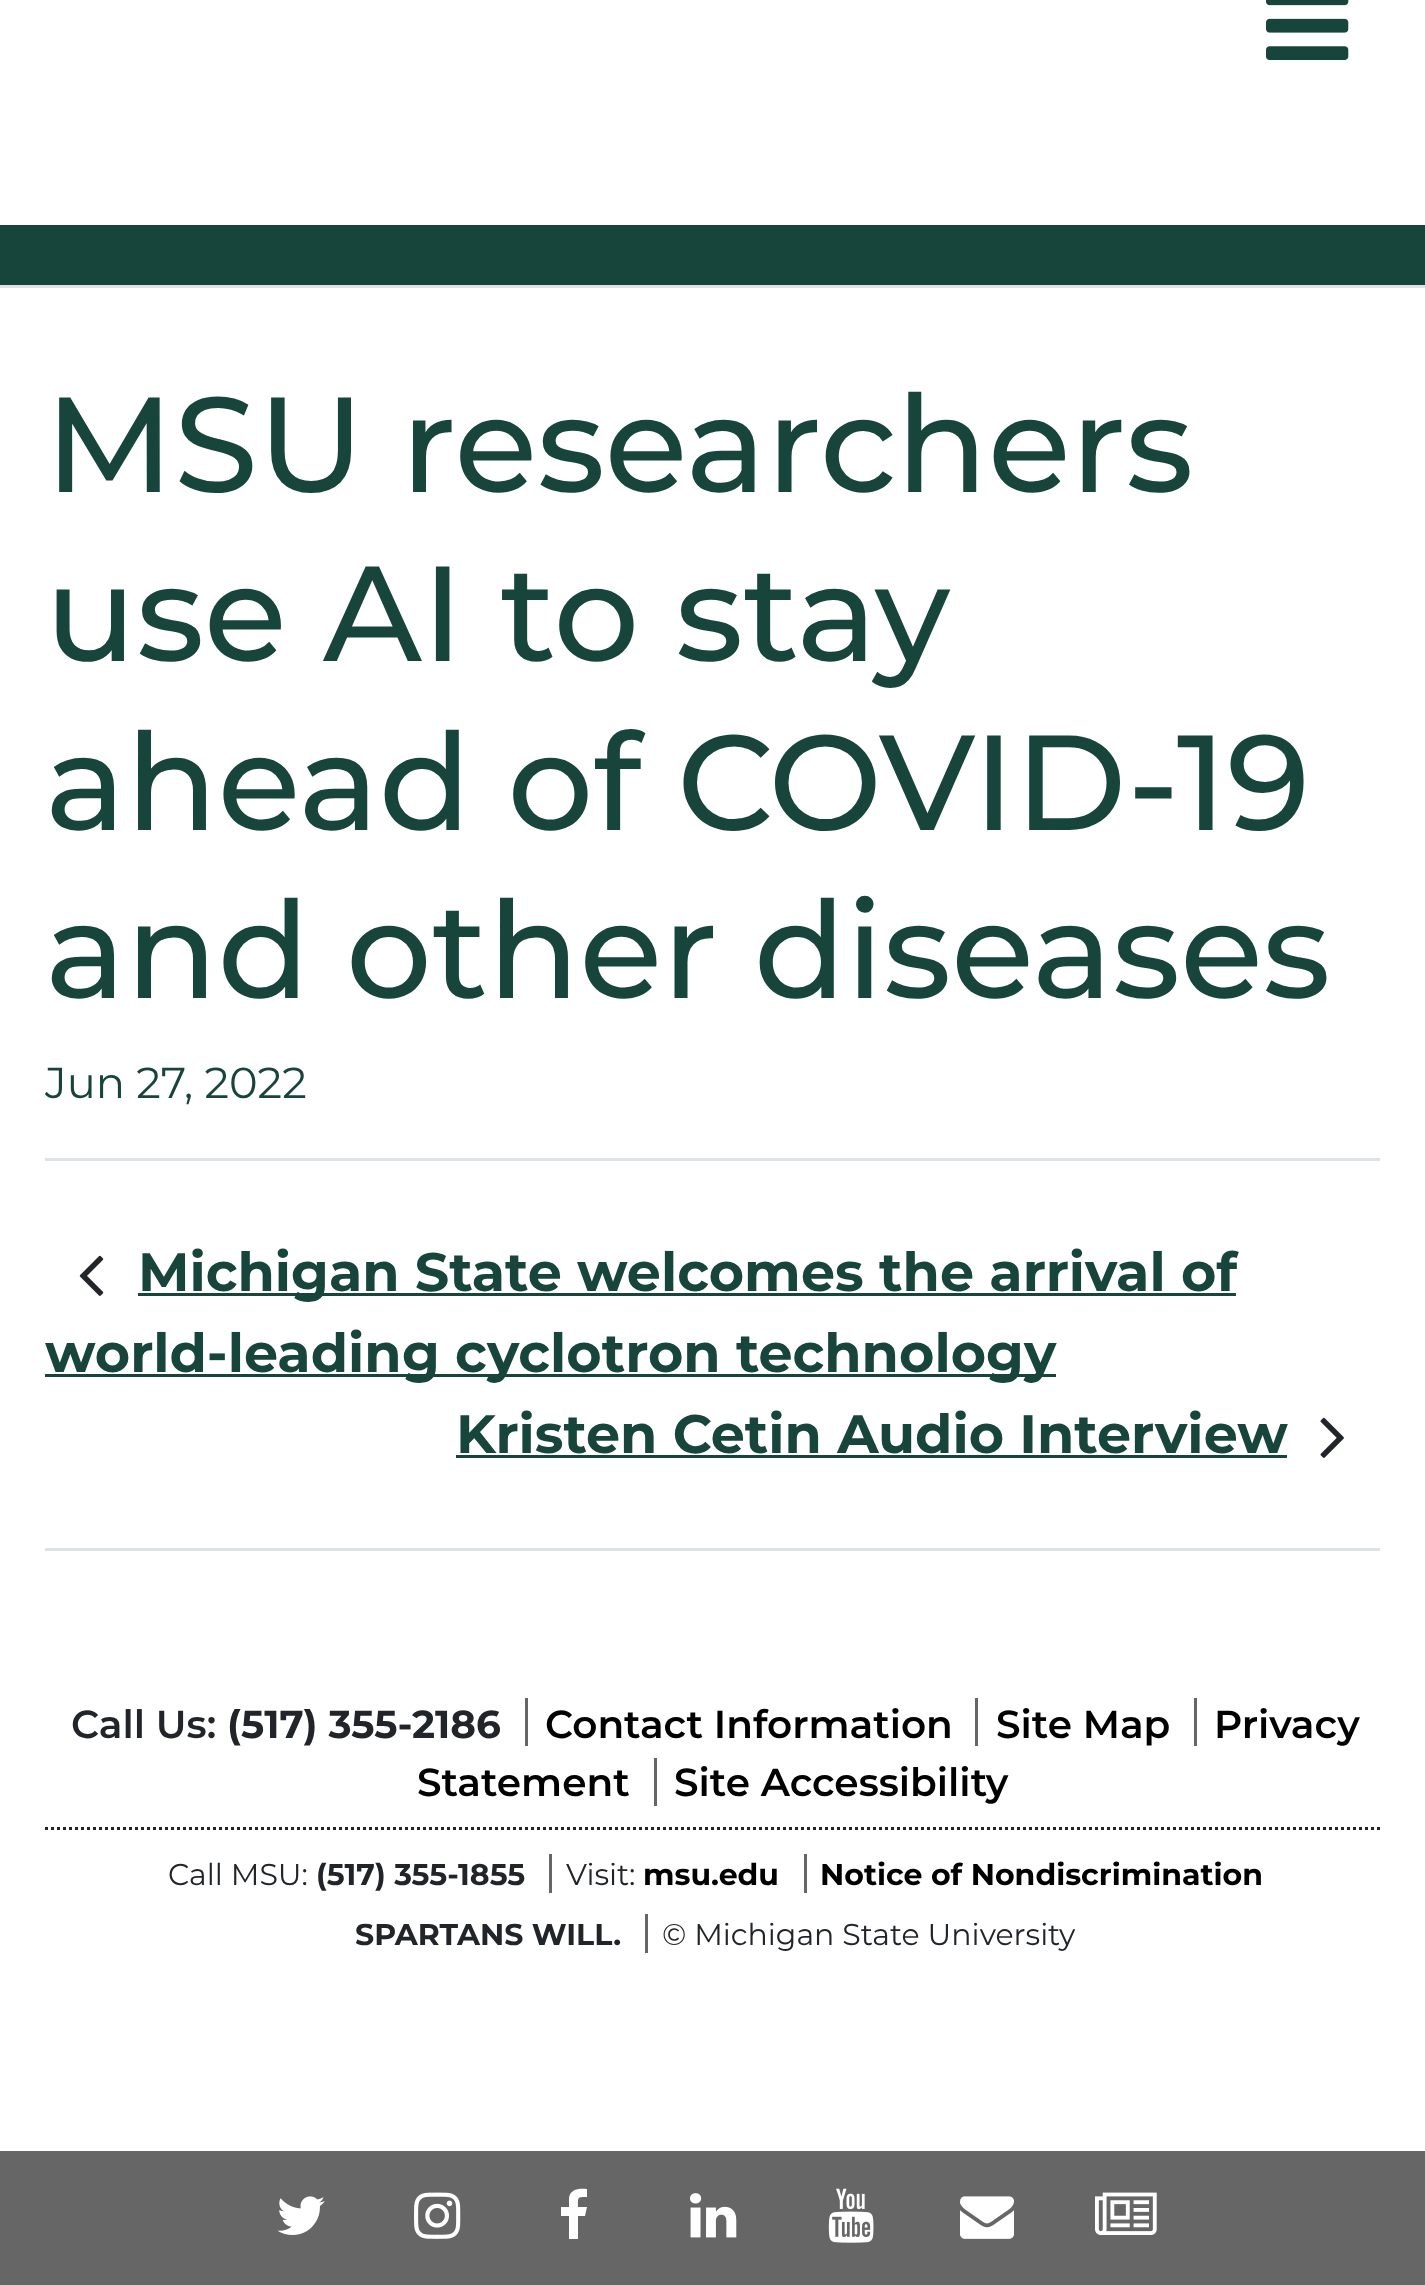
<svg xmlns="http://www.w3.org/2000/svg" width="1425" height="2285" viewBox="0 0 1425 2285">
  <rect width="100%" height="100%" fill="rgb(255,255,255)"/>
  <image x="1266" y="0" width="83" height="60" href="pic1.png"/>
  <rect x="0" y="225" width="1425" height="60" fill="rgb(24,69,59)"/>
  <rect x="0" y="285" width="1425" height="3" fill="rgb(222,226,230)"/>
  <g font-family="Montserrat" font-size="135" font-weight="500" fill="rgb(24,69,59)">
    <text>
      <tspan x="45" y="492">MSU researchers</tspan>
      <tspan x="45" y="661">use AI to stay</tspan>
      <tspan x="45" y="830">ahead of COVID-19</tspan>
      <tspan x="45" y="998">and other diseases</tspan>
    </text>
  </g>
  <text x="45" y="1098" font-family="Montserrat" font-size="43.25" fill="rgb(24,69,59)">Jun 27, 2022</text>
  <rect x="45" y="1158" width="1335" height="3" fill="rgb(222,226,230)"/>
  <rect x="45" y="1548" width="1335" height="3" fill="rgb(222,226,230)"/>
  <image x="79" y="1255" width="25" height="41" href="pic2.png"/>
  <rect x="138" y="1293" width="1098" height="3" fill="rgb(24,69,59)"/>
  <text x="138" y="1291" font-family="Montserrat" font-size="54" font-weight="bold" fill="rgb(24,69,59)">Michigan State welcomes the arrival of</text>
  <rect x="45" y="1374" width="1011" height="3" fill="rgb(24,69,59)"/>
  <g font-family="Montserrat" font-size="54" font-weight="bold" fill="rgb(24,69,59)">
    <text x="45" y="1372">world-leading cyclotron technology</text>
    <text x="456" y="1453">Kristen Cetin Audio Interview</text>
  </g>
  <rect x="456" y="1455" width="831" height="3" fill="rgb(24,69,59)"/>
  <image x="1320" y="1417" width="24" height="41" href="pic3.png"/>
  <path d="M45 1828.5H1380" fill="none" stroke="rgb(33,37,41)" stroke-width="3" stroke-dasharray="3 3"/>
  <text x="71" y="1738" font-family="Montserrat" font-size="39" font-weight="600" fill="rgb(33,37,41)">Call Us:</text>
  <text x="227" y="1738" font-family="Montserrat" font-size="39" font-weight="bold" fill="rgb(33,37,41)">(517) 355-2186</text>
  <rect x="525" y="1698" width="3" height="48" fill="rgb(102,102,102)"/>
  <text x="545" y="1738" font-family="Montserrat" font-size="39" font-weight="600" fill="rgb(0,0,0)">Contact Information</text>
  <rect x="975" y="1698" width="3" height="48" fill="rgb(102,102,102)"/>
  <text x="996" y="1738" font-family="Montserrat" font-size="39" font-weight="600" fill="rgb(0,0,0)">Site Map</text>
  <rect x="1194" y="1698" width="3" height="48" fill="rgb(102,102,102)"/>
  <g font-family="Montserrat" font-size="39" font-weight="600" fill="rgb(0,0,0)">
    <text x="1214" y="1738">Privacy</text>
    <text x="417" y="1796">Statement</text>
  </g>
  <rect x="654" y="1758" width="3" height="48" fill="rgb(102,102,102)"/>
  <text x="674" y="1796" font-family="Montserrat" font-size="39" font-weight="600" fill="rgb(0,0,0)">Site Accessibility</text>
  <text x="168" y="1885" font-family="Montserrat" font-size="30" fill="rgb(33,37,41)">Call MSU:</text>
  <text x="316" y="1885" font-family="Montserrat" font-size="30" font-weight="bold" fill="rgb(33,37,41)">(517) 355-1855</text>
  <rect x="549" y="1854" width="3" height="39" fill="rgb(102,102,102)"/>
  <text x="566" y="1885" font-family="Montserrat" font-size="30" fill="rgb(33,37,41)">Visit:</text>
  <text x="643" y="1885" font-family="Montserrat" font-size="30" font-weight="bold" fill="rgb(0,0,0)">msu.edu</text>
  <rect x="804" y="1854" width="3" height="39" fill="rgb(102,102,102)"/>
  <text x="820" y="1885" font-family="Montserrat" font-size="30" font-weight="bold" fill="rgb(0,0,0)">Notice of Nondiscrimination</text>
  <text x="355" y="1945" font-family="Montserrat" font-size="30" font-weight="bold" fill="rgb(33,37,41)">SPARTANS WILL.</text>
  <rect x="645" y="1914" width="3" height="39" fill="rgb(102,102,102)"/>
  <text x="662" y="1945" font-family="Montserrat" font-size="30" fill="rgb(33,37,41)">© Michigan State University</text>
  <rect x="0" y="2151" width="1425" height="134" fill="rgb(102,102,102)"/>
  <image x="277" y="2196" width="48" height="39" href="pic4.png"/>
  <image x="414" y="2192" width="47" height="47" href="pic5.png"/>
  <path d="M587 2189V2197C577 2197 578 2197 578 2207H587L585 2216H578V2239H569V2216H561V2207H569V2198C570 2189 579 2188 587 2189Z" fill="rgb(255,255,255)"/>
  <image x="690" y="2193" width="47" height="45" href="pic6.png"/>
  <image x="828" y="2188" width="46" height="55" href="pic7.png"/>
  <image x="960" y="2196" width="54" height="43" href="pic8.png"/>
  <image x="1095" y="2192" width="62" height="43" href="pic9.png"/>
</svg>
